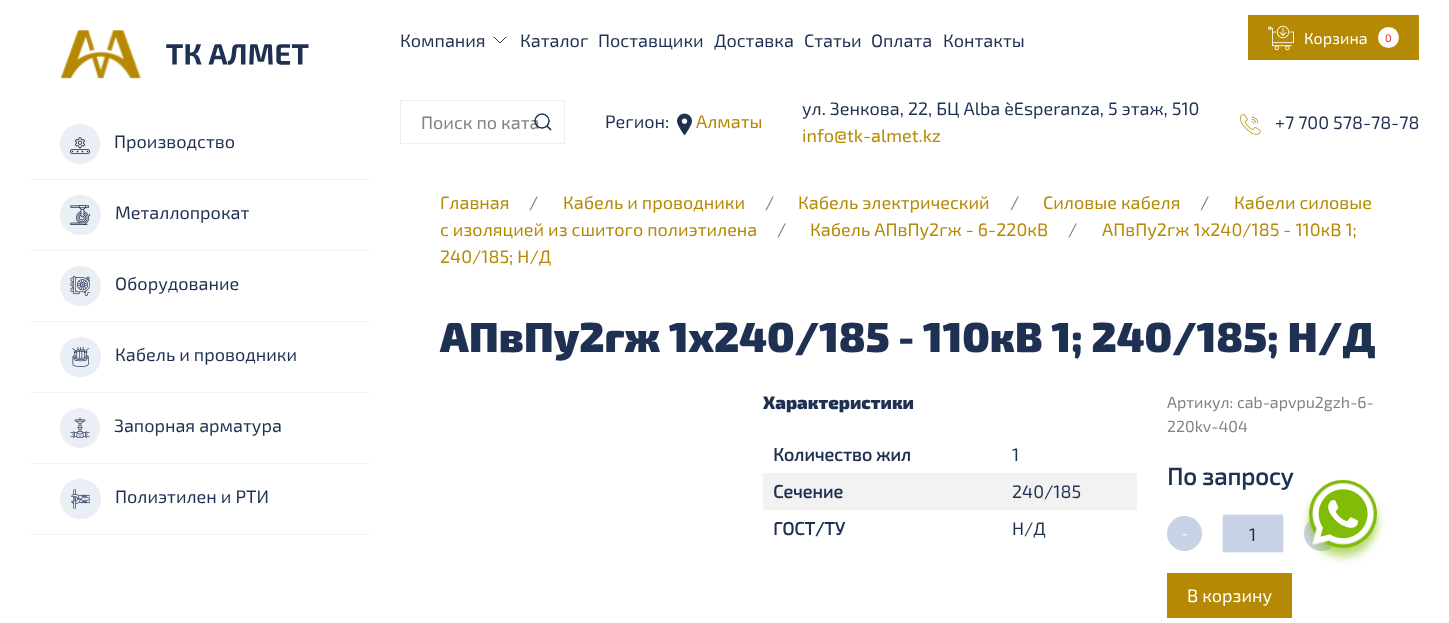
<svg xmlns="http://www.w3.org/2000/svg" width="1449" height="623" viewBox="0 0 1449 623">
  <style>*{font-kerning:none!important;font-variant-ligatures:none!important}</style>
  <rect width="100%" height="100%" fill="rgb(255,255,255)"/>
  <image x="60" y="30" width="249" height="49" href="pic1.png"/>
  <rect x="30" y="179" width="340" height="1" fill="rgb(242,242,242)"/>
  <circle cx="80" cy="144" r="20" fill="rgb(234,238,245)"/>
  <image x="70" y="137" width="20" height="17" href="pic2.png"/>
  <text x="114" y="148" font-family="'Exo 2'" font-size="18" fill="rgb(31,49,83)">Производство</text>
  <rect x="30" y="250" width="340" height="1" fill="rgb(242,242,242)"/>
  <rect x="60" y="195" width="41" height="40" rx="20" fill="rgb(234,238,245)"/>
  <image x="70" y="205" width="21" height="20" href="pic3.png"/>
  <text x="115" y="219" font-family="'Exo 2'" font-size="18" fill="rgb(31,49,83)">Металлопрокат</text>
  <rect x="30" y="321" width="340" height="1" fill="rgb(242,242,242)"/>
  <rect x="60" y="266" width="41" height="40" rx="20" fill="rgb(234,238,245)"/>
  <image x="70" y="276" width="20" height="20" href="pic4.png"/>
  <text x="115" y="290" font-family="'Exo 2'" font-size="18" fill="rgb(31,49,83)">Оборудование</text>
  <rect x="30" y="392" width="340" height="1" fill="rgb(242,242,242)"/>
  <rect x="60" y="337" width="41" height="40" rx="20" fill="rgb(234,238,245)"/>
  <image x="72" y="347" width="17" height="20" href="pic5.png"/>
  <text x="115" y="361" font-family="'Exo 2'" font-size="18" fill="rgb(31,49,83)">Кабель и проводники</text>
  <rect x="30" y="463" width="340" height="1" fill="rgb(242,242,242)"/>
  <circle cx="80" cy="428" r="20" fill="rgb(234,238,245)"/>
  <image x="70" y="418" width="20" height="20" href="pic6.png"/>
  <text x="114" y="432" font-family="'Exo 2'" font-size="18" fill="rgb(31,49,83)">Запорная арматура</text>
  <rect x="30" y="534" width="340" height="1" fill="rgb(242,242,242)"/>
  <rect x="60" y="479" width="41" height="40" rx="20" fill="rgb(234,238,245)"/>
  <image x="71" y="489" width="19" height="20" href="pic7.png"/>
  <g font-family="'Exo 2'" font-size="18" fill="rgb(31,49,83)">
    <text x="115" y="503">Полиэтилен и РТИ</text>
    <text x="400" y="47">Компания</text>
  </g>
  <path d="M506 37L500 43L494 37" fill="none" stroke="rgb(31,49,83)"/>
  <g font-family="'Exo 2'" font-size="18" fill="rgb(31,49,83)">
    <text x="520" y="47">Каталог</text>
    <text x="598" y="47">Поставщики</text>
    <text x="714" y="47">Доставка</text>
    <text x="804" y="47">Статьи</text>
    <text x="871" y="47">Оплата</text>
    <text x="943" y="47">Контакты</text>
  </g>
  <rect x="1248" y="15" width="171" height="45" fill="rgb(181,137,3)"/>
  <image x="1268" y="25" width="26" height="26" href="pic8.png"/>
  <text x="1304" y="44" font-family="'Exo 2'" font-size="16" fill="rgb(255,255,255)">Корзина</text>
  <circle cx="1388.5" cy="37.5" r="10.5" fill="rgb(255,255,255)"/>
  <text x="1385" y="42" font-family="'Exo 2'" font-size="11" fill="rgb(220,39,39)">0</text>
  <rect x="400.5" y="100.5" width="164" height="43" fill="none" stroke="rgb(234,238,245)"/>
  <text x="421" y="129" font-family="'Exo 2'" font-size="18" fill="rgb(130,130,130)">Поиск по ката</text>
  <circle cx="542" cy="121" r="7" fill="none" stroke="rgb(31,49,83)" stroke-width="1.1"/>
  <path d="M547 126L551 130Z" fill="none" stroke="rgb(31,49,83)" stroke-width="1.1"/>
  <circle cx="542" cy="121" r="7" fill="none" stroke="rgb(31,49,83)" stroke-width="1.1"/>
  <path d="M547 126L551 130Z" fill="none" stroke="rgb(31,49,83)" stroke-width="1.1"/>
  <text x="605" y="128" font-family="'Exo 2'" font-size="18" fill="rgb(31,49,83)">Регион:</text>
  <image x="677" y="113" width="15" height="23" href="pic9.png"/>
  <text x="696" y="128" font-family="'Exo 2'" font-size="18" fill="rgb(181,137,3)">Алматы</text>
  <text x="802" y="115" font-family="'Exo 2'" font-size="18" fill="rgb(31,49,83)">ул. Зенкова, 22, БЦ Alba e`Esperanza, 5 этаж, 510</text>
  <text x="802" y="142" font-family="'Exo 2'" font-size="18" fill="rgb(181,137,3)">info@tk-almet.kz</text>
  <image x="1240" y="114" width="21" height="21" href="pic10.png"/>
  <text x="1275" y="129" font-family="'Exo 2'" font-size="18" fill="rgb(31,49,83)">+7 700 578-78-78</text>
  <text x="1200" y="209" font-family="'Exo 2'" font-size="18" fill="rgb(130,130,130)">/</text>
  <g font-family="'Exo 2'" font-size="18" fill="rgb(181,137,3)">
    <text x="1234" y="209">Кабели силовые</text>
    <text x="440" y="236">с изоляцией из сшитого полиэтилена</text>
    <text x="440" y="209">Главная</text>
  </g>
  <text x="529" y="209" font-family="'Exo 2'" font-size="18" fill="rgb(130,130,130)">/</text>
  <text x="563" y="209" font-family="'Exo 2'" font-size="18" fill="rgb(181,137,3)">Кабель и проводники</text>
  <text x="765" y="209" font-family="'Exo 2'" font-size="18" fill="rgb(130,130,130)">/</text>
  <text x="798" y="209" font-family="'Exo 2'" font-size="18" fill="rgb(181,137,3)">Кабель электрический</text>
  <text x="1010" y="209" font-family="'Exo 2'" font-size="18" fill="rgb(130,130,130)">/</text>
  <text x="1043" y="209" font-family="'Exo 2'" font-size="18" fill="rgb(181,137,3)">Силовые кабеля</text>
  <text x="777" y="236" font-family="'Exo 2'" font-size="18" fill="rgb(130,130,130)">/</text>
  <text x="810" y="236" font-family="'Exo 2'" font-size="18" fill="rgb(181,137,3)">Кабель АПвПу2гж - 6-220кВ</text>
  <text x="1068" y="236" font-family="'Exo 2'" font-size="18" fill="rgb(130,130,130)">/</text>
  <g font-family="'Exo 2'" font-size="18" fill="rgb(181,137,3)">
    <text x="1102" y="236">АПвПу2гж 1х240/185 - 110кВ 1;</text>
    <text x="440" y="263">240/185; Н/Д</text>
  </g>
  <text x="440" y="352" font-family="'Exo 2'" font-size="42" font-weight="900" fill="rgb(31,49,83)">АПвПу2гж 1х240/185 - 110кВ 1; 240/185; Н/Д</text>
  <text x="763" y="409" font-family="'Exo 2'" font-size="18" font-weight="900" fill="rgb(31,49,83)">Характеристики</text>
  <text x="773" y="461" font-family="'Exo 2'" font-size="18" font-weight="bold" fill="rgb(31,49,83)">Количество жил</text>
  <text x="1012" y="461" font-family="'Exo 2'" font-size="18" fill="rgb(31,49,83)">1</text>
  <rect x="763" y="473" width="374" height="37" fill="rgb(242,242,242)"/>
  <text x="773" y="498" font-family="'Exo 2'" font-size="18" font-weight="bold" fill="rgb(31,49,83)">Сечение</text>
  <text x="1012" y="498" font-family="'Exo 2'" font-size="18" fill="rgb(31,49,83)">240/185</text>
  <text x="773" y="535" font-family="'Exo 2'" font-size="18" font-weight="bold" fill="rgb(31,49,83)">ГОСТ/ТУ</text>
  <text x="1012" y="535" font-family="'Exo 2'" font-size="18" fill="rgb(31,49,83)">Н/Д</text>
  <g font-family="'Exo 2'" font-size="16" fill="rgb(130,130,130)">
    <text>
      <tspan x="1167" y="408">Артикул: cab-apvpu2gzh-6-</tspan>
      <tspan x="1167" y="432">220kv-404</tspan>
    </text>
  </g>
  <text x="1167" y="485" font-family="'Exo 2'" font-size="24" font-weight="bold" fill="rgb(31,49,83)">По запросу</text>
  <circle cx="1184.5" cy="533.5" r="17.5" fill="rgb(199,210,229)"/>
  <text x="1182" y="539" font-family="Liberation Sans" font-size="16" fill="rgb(255,255,255)">-</text>
  <rect x="1222.5" y="514.5" width="61" height="38" rx="2.5" fill="rgb(199,210,229)" stroke="rgb(234,238,245)"/>
  <text x="1249" y="541" font-family="'Exo 2'" font-size="18" fill="rgb(31,49,83)">1</text>
  <circle cx="1321.5" cy="533.5" r="17.5" fill="rgb(199,210,229)"/>
  <rect x="1167" y="573" width="125" height="45" fill="rgb(181,137,3)"/>
  <text x="1187" y="602" font-family="'Exo 2'" font-size="18" fill="rgb(255,255,255)">В корзину</text>
  <rect x="1309" y="488" width="68" height="68" rx="34" fill="rgba(128,188,8,0.6)" filter="blur(5px)"/>
  <circle cx="1343" cy="514" r="32.5" fill="rgb(128,188,8)" stroke="rgb(128,188,8)" stroke-width="3"/>
  <image x="1312" y="483" width="62" height="62" href="pic11.png"/>
</svg>
